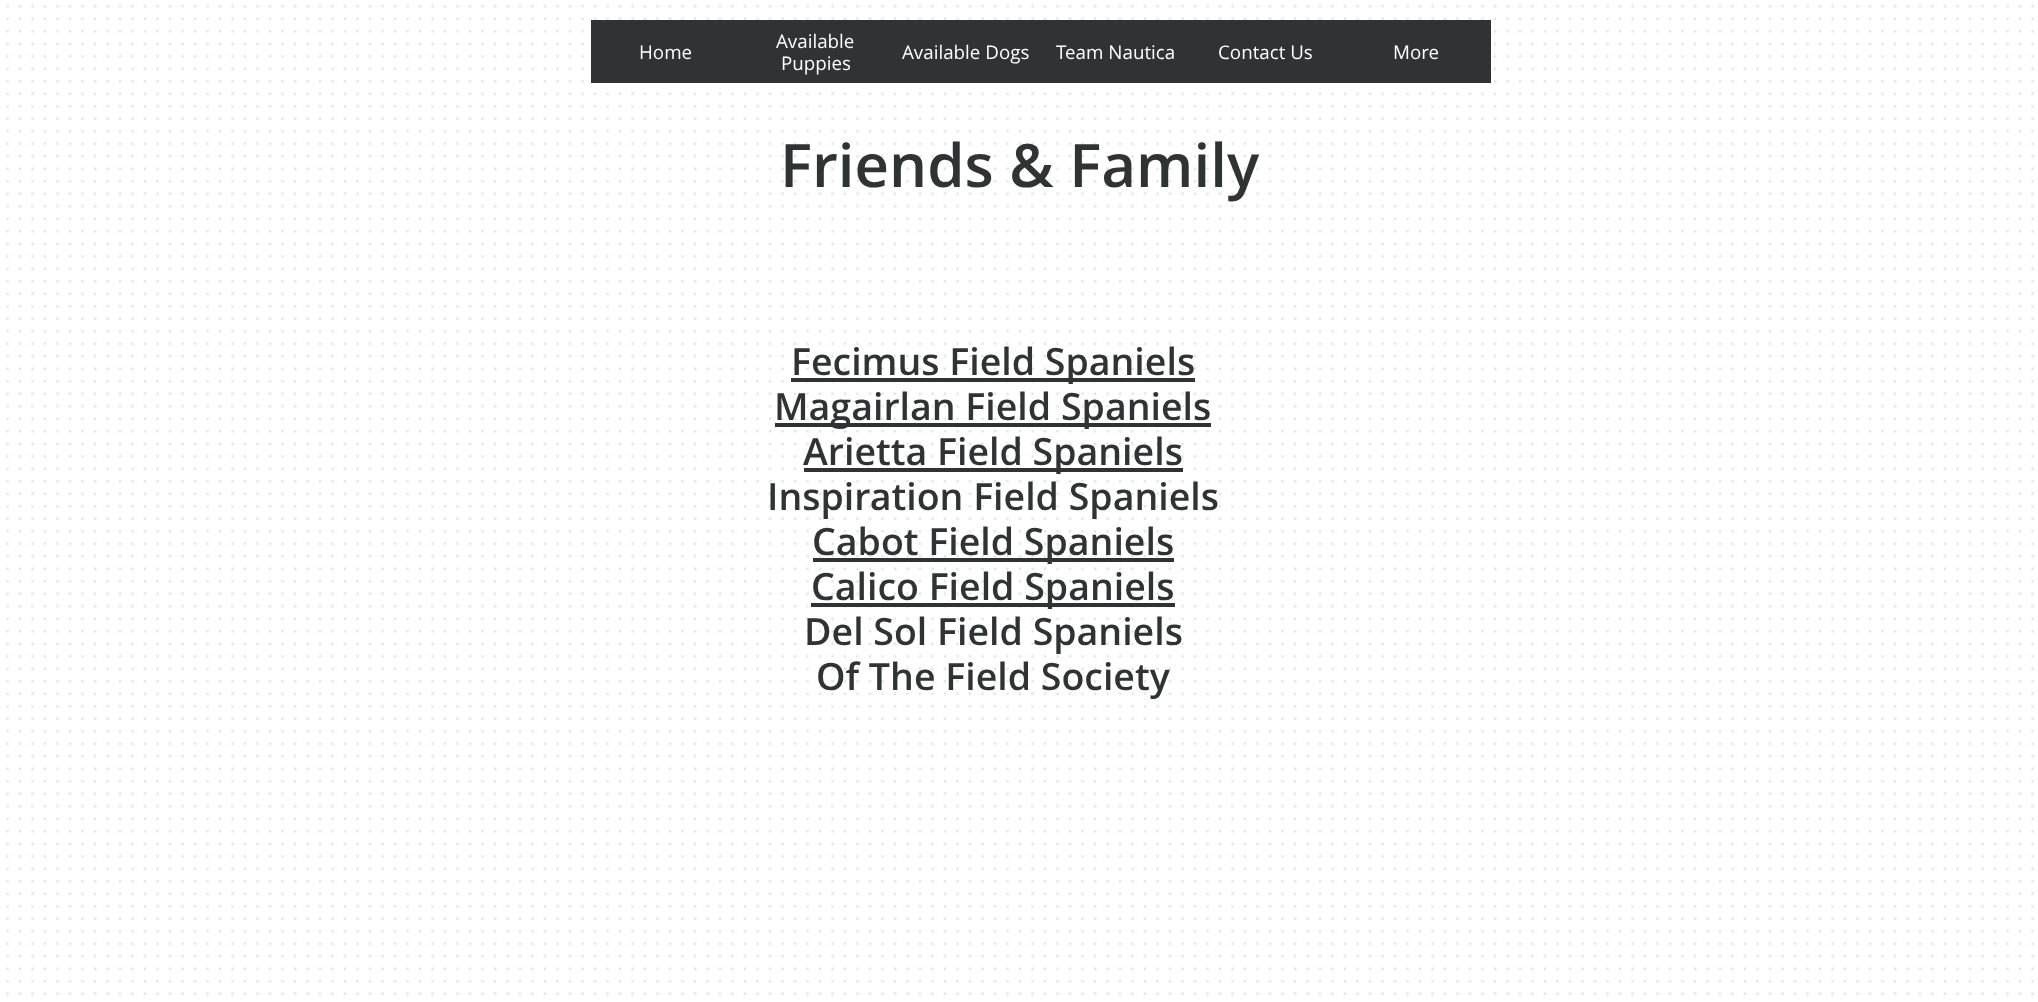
<svg xmlns="http://www.w3.org/2000/svg" width="2038" height="1002" viewBox="0 0 2038 1002">
  <rect width="100%" height="100%" fill="rgb(255,255,255)"/>
  <image x="6" y="5" width="2028" height="990" href="pic1.png"/>
  <rect x="591" y="20" width="750" height="63" fill="rgb(48,51,51)"/>
  <g font-family="Open Sans" font-size="18.75" fill="rgb(255,255,255)">
    <text x="639" y="59">Home</text>
    <text x="776" y="48">Available</text>
    <text x="781" y="70">Puppies</text>
    <text x="902" y="59">Available Dogs</text>
    <text x="1056" y="59">Team Nautica</text>
    <text x="1218" y="59">Contact Us</text>
  </g>
  <rect x="1341" y="20" width="150" height="63" fill="rgb(48,51,51)"/>
  <text x="1393" y="59" font-family="Open Sans" font-size="18.75" fill="rgb(255,255,255)">More</text>
  <text x="780" y="187" font-family="Open Sans" font-size="60" font-weight="600" fill="rgb(48,51,51)">Friends &amp; Family</text>
  <rect x="791" y="378" width="404" height="4" fill="rgb(48,51,51)"/>
  <text x="791" y="375" font-family="Open Sans" font-size="37.5" font-weight="600" fill="rgb(48,51,51)">Fecimus Field Spaniels</text>
  <rect x="775" y="423" width="436" height="4" fill="rgb(48,51,51)"/>
  <text x="774" y="420" font-family="Open Sans" font-size="37.5" font-weight="600" fill="rgb(48,51,51)">Magairlan Field Spaniels</text>
  <rect x="804" y="468" width="379" height="4" fill="rgb(48,51,51)"/>
  <g font-family="Open Sans" font-size="37.5" font-weight="600" fill="rgb(48,51,51)">
    <text x="803" y="465">Arietta Field Spaniels</text>
    <text x="767" y="510">Inspiration Field Spaniels</text>
  </g>
  <rect x="813" y="558" width="361" height="4" fill="rgb(48,51,51)"/>
  <text x="812" y="555" font-family="Open Sans" font-size="37.5" font-weight="600" fill="rgb(48,51,51)">Cabot Field Spaniels</text>
  <rect x="811" y="603" width="364" height="4" fill="rgb(48,51,51)"/>
  <g font-family="Open Sans" font-size="37.5" font-weight="600" fill="rgb(48,51,51)">
    <text x="811" y="600">Calico Field Spaniels</text>
    <text x="804" y="645">Del Sol Field Spaniels</text>
    <text x="816" y="690">Of The Field Society</text>
  </g>
</svg>
